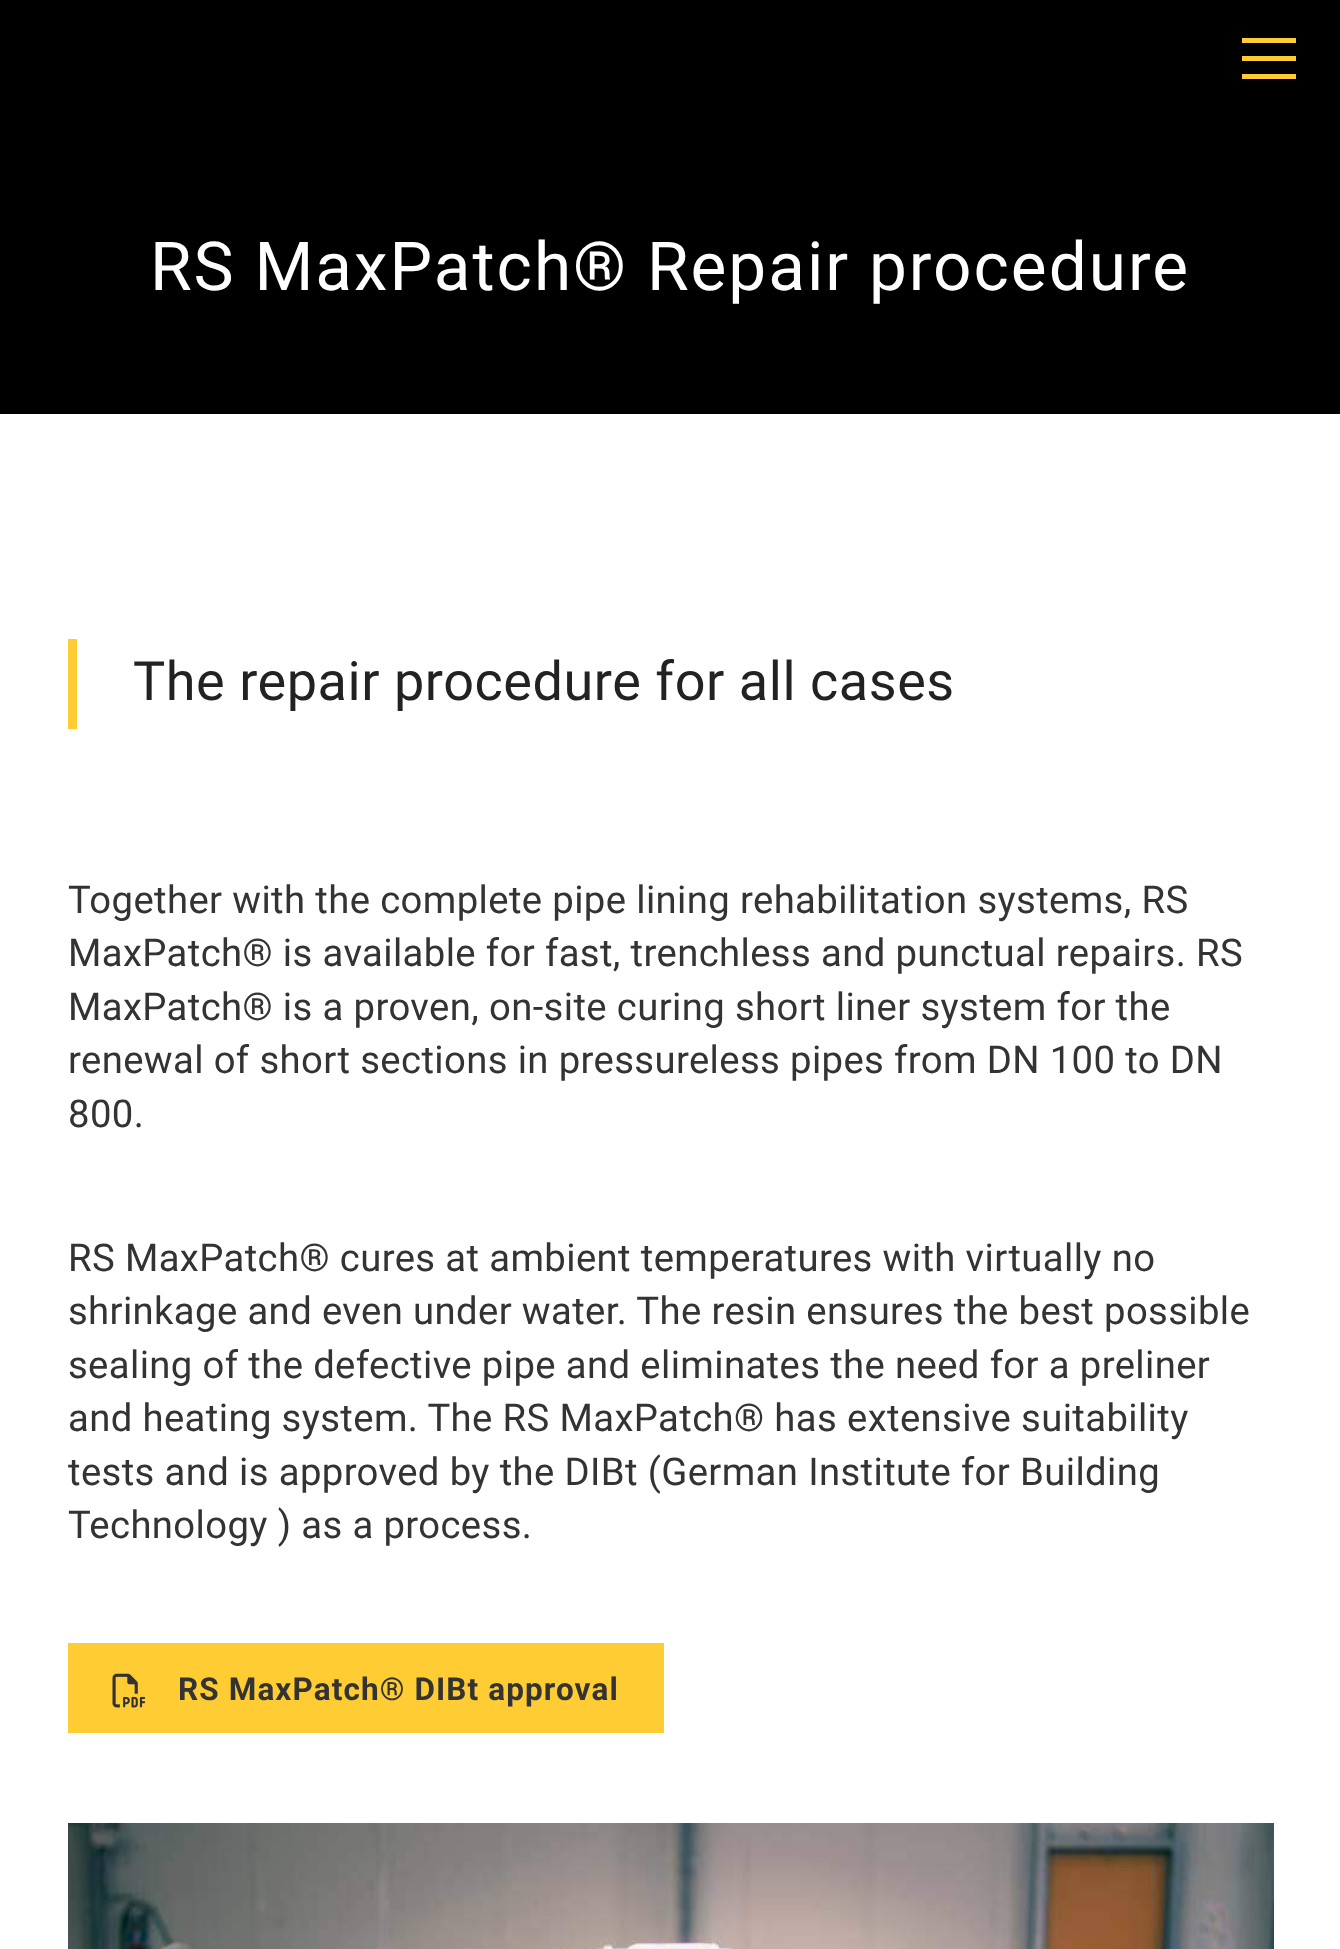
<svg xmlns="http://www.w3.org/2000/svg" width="1340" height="1949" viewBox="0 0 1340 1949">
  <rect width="100%" height="100%" fill="rgb(255,255,255)"/>
  <rect x="0" y="0" width="1340" height="414" fill="rgb(0,0,0)"/>
  <rect x="1242" y="56" width="54" height="5" fill="rgb(255,204,51)"/>
  <rect x="1242" y="38" width="54" height="5" fill="rgb(255,204,51)"/>
  <rect x="1242" y="74" width="54" height="5" fill="rgb(255,204,51)"/>
  <text x="150" y="290" font-family="Roboto" font-size="67.5" letter-spacing="2" fill="rgb(255,255,255)">RS MaxPatch® Repair procedure</text>
  <rect x="68" y="639" width="9" height="90" fill="rgb(255,204,51)"/>
  <text x="133" y="700" font-family="Roboto" font-size="54" letter-spacing="0.55" fill="rgb(34,34,34)">The repair procedure for all cases</text>
  <g font-family="Roboto" font-size="38.25" letter-spacing="0.38" fill="rgb(51,51,51)">
    <text>
      <tspan x="68" y="913">Together with the complete pipe lining rehabilitation systems, RS</tspan>
      <tspan x="68" y="966">MaxPatch® is available for fast, trenchless and punctual repairs. RS</tspan>
      <tspan x="68" y="1020">MaxPatch® is a proven, on-site curing short liner system for the</tspan>
      <tspan x="68" y="1073">renewal of short sections in pressureless pipes from DN 100 to DN</tspan>
      <tspan x="68" y="1127">800.</tspan>
    </text>
    <text>
      <tspan x="68" y="1271">RS MaxPatch® cures at ambient temperatures with virtually no</tspan>
      <tspan x="68" y="1324">shrinkage and even under water. The resin ensures the best possible</tspan>
      <tspan x="68" y="1378">sealing of the defective pipe and eliminates the need for a preliner</tspan>
      <tspan x="68" y="1431">and heating system. The RS MaxPatch® has extensive suitability</tspan>
      <tspan x="68" y="1485">tests and is approved by the DIBt (German Institute for Building</tspan>
      <tspan x="68" y="1538">Technology ) as a process.</tspan>
    </text>
  </g>
  <rect x="68" y="1643" width="596" height="90" fill="rgb(255,204,51)"/>
  <image x="112" y="1673" width="34" height="35" href="pic1.png"/>
  <text x="178" y="1700" font-family="Roboto" font-size="31.5" font-weight="bold" letter-spacing="1.1" fill="rgb(51,51,51)">RS MaxPatch® DIBt approval</text>
  <image x="68" y="1823" width="1206" height="126" href="pic2.png"/>
</svg>
